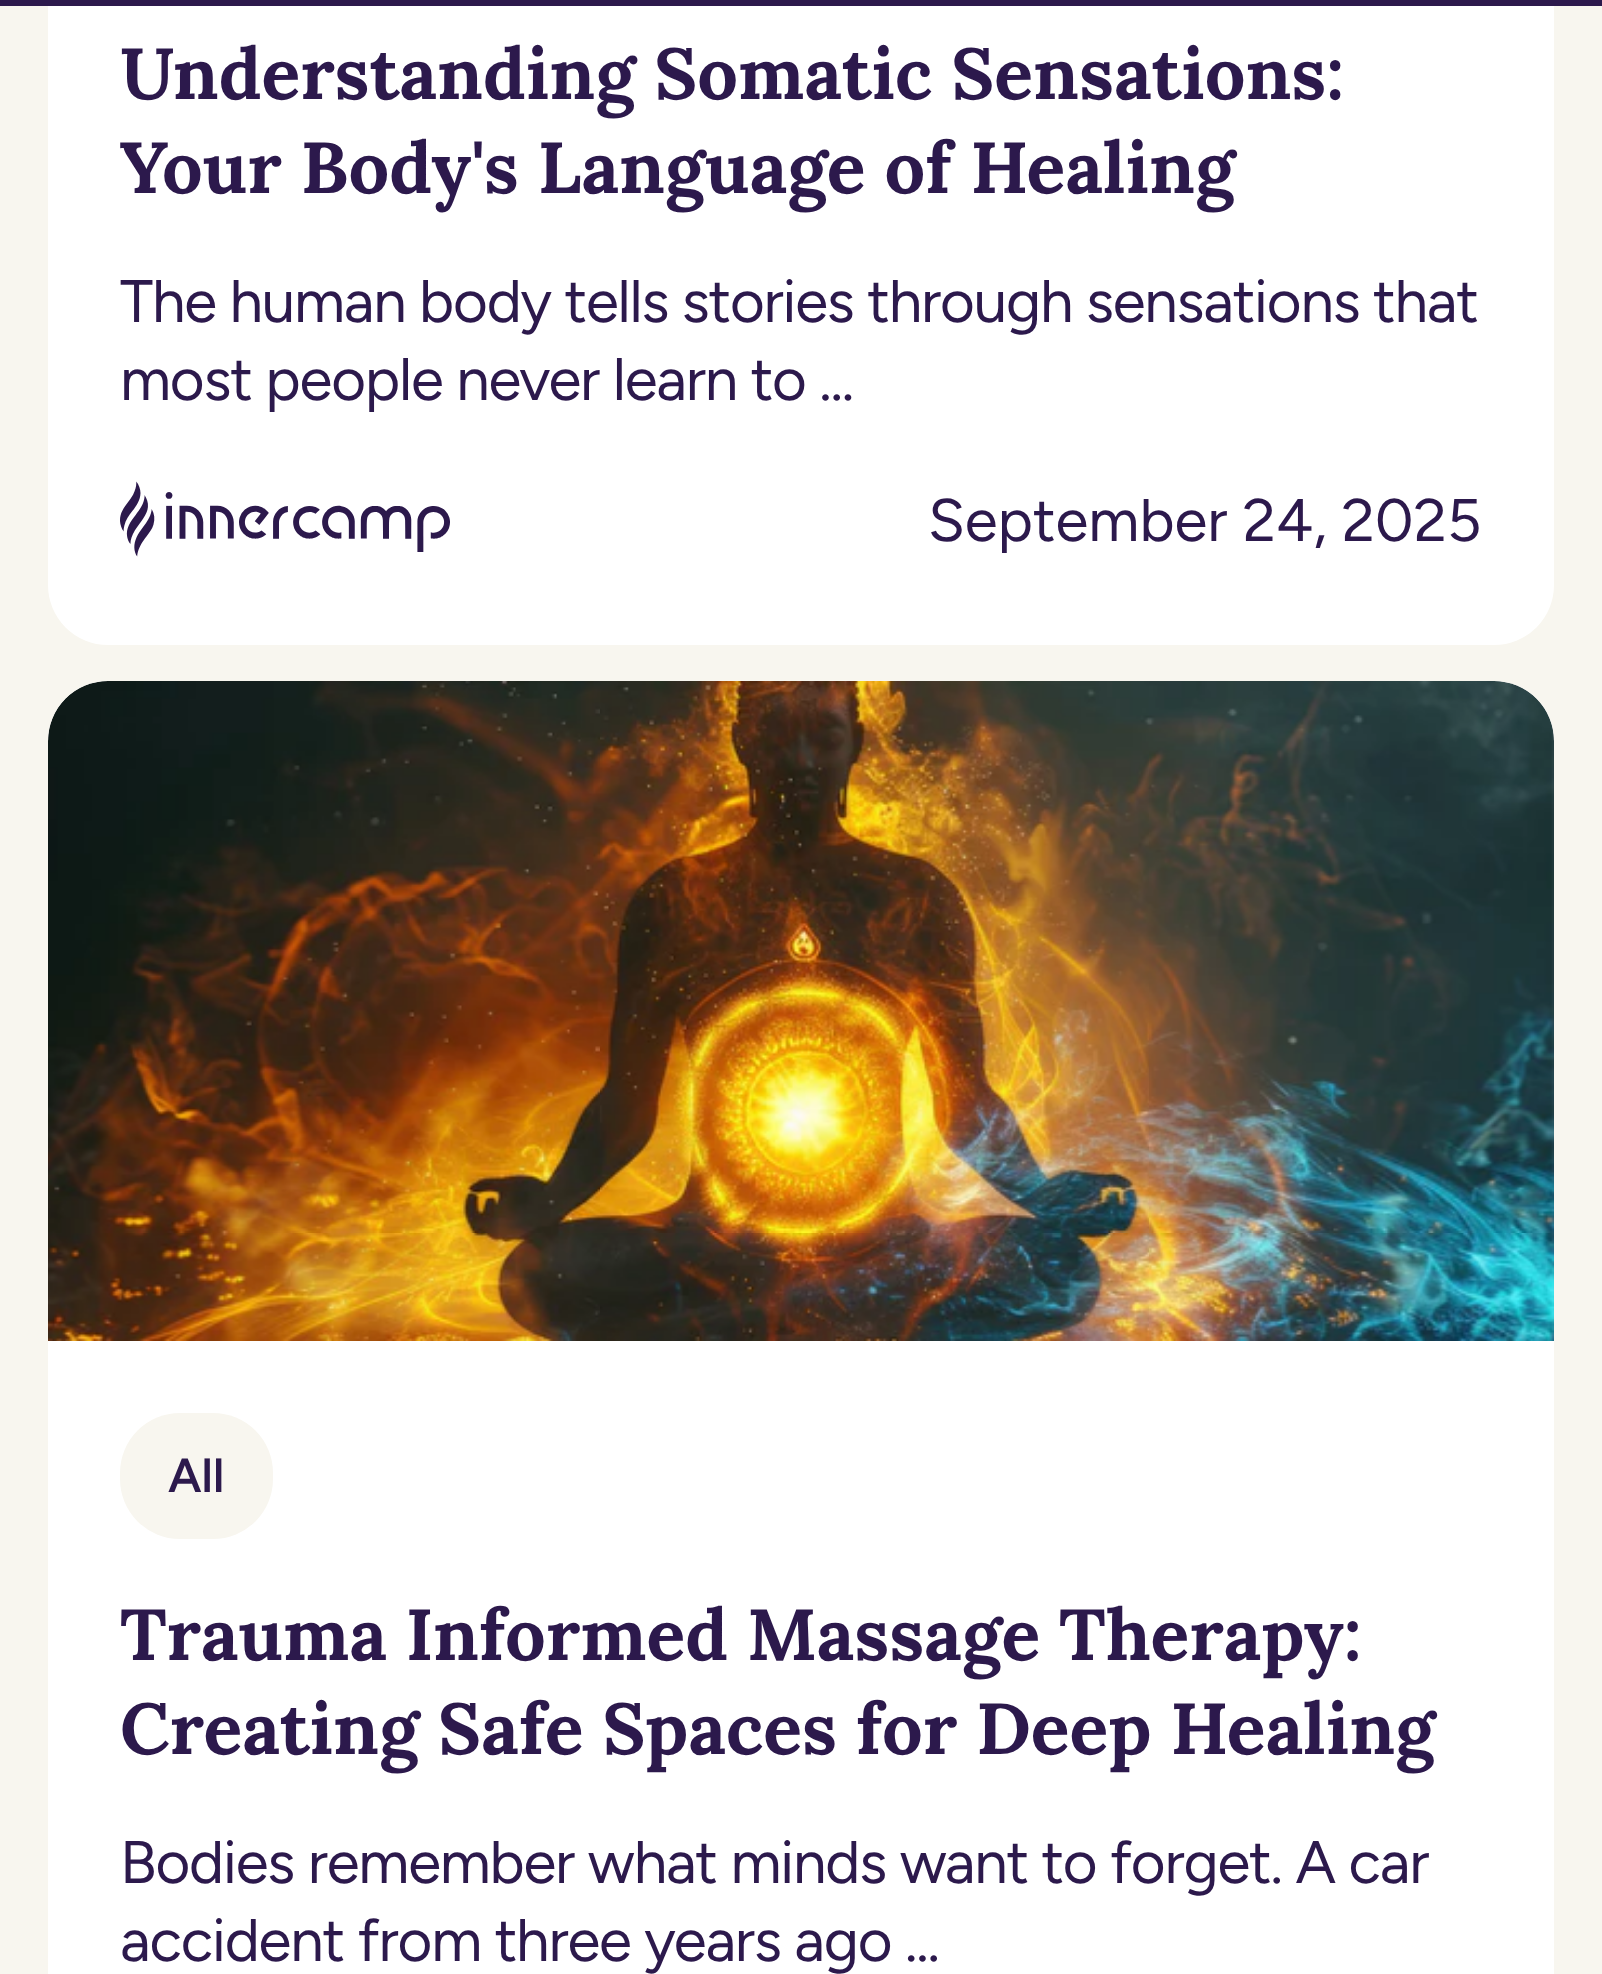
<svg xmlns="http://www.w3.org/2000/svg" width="1602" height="1974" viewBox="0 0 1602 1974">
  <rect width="100%" height="100%" fill="rgb(248,246,239)"/>
  <rect x="48" y="-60" width="1506" height="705" rx="60" fill="rgb(255,255,255)"/>
  <rect x="0" y="0" width="1602" height="6" fill="rgb(44,25,76)"/>
  <g font-family="Lora" font-size="72" font-weight="bold" fill="rgb(44,25,76)">
    <text>
      <tspan x="120" y="99">Understanding Somatic Sensations:</tspan>
      <tspan x="120" y="193">Your Body's Language of Healing</tspan>
    </text>
  </g>
  <g font-family="Figtree" font-size="60" letter-spacing="-1.2" fill="rgb(44,25,76)">
    <text>
      <tspan x="120" y="322">The human body tells stories through sensations that</tspan>
      <tspan x="120" y="400">most people never learn to ...</tspan>
    </text>
  </g>
  <image x="120" y="481" width="330" height="76" href="pic1.png"/>
  <text x="928" y="541" font-family="Figtree" font-size="60" fill="rgb(44,25,76)">September 24, 2025</text>
  <rect x="48" y="681" width="1506" height="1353" rx="60" fill="rgb(255,255,255)"/>
  <path d="M108 681H1494C1527 681 1554 708 1554 741V1341H48V741C48 708 75 681 108 681Z" fill="rgba(44,25,76,0.1)"/>
  <image x="48" y="681" width="1506" height="660" href="pic2.png"/>
  <rect x="120" y="1413" width="153" height="126" rx="60" fill="rgb(248,246,239)"/>
  <text x="168" y="1492" font-family="Figtree" font-size="48" font-weight="600" fill="rgb(44,25,76)">All</text>
  <g font-family="Lora" font-size="72" font-weight="bold" fill="rgb(44,25,76)">
    <text>
      <tspan x="120" y="1660">Trauma Informed Massage Therapy:</tspan>
      <tspan x="120" y="1754">Creating Safe Spaces for Deep Healing</tspan>
    </text>
  </g>
  <g font-family="Figtree" font-size="60" letter-spacing="-1.2" fill="rgb(44,25,76)">
    <text>
      <tspan x="120" y="1883">Bodies remember what minds want to forget. A car</tspan>
      <tspan x="120" y="1961">accident from three years ago ...</tspan>
    </text>
  </g>
</svg>
